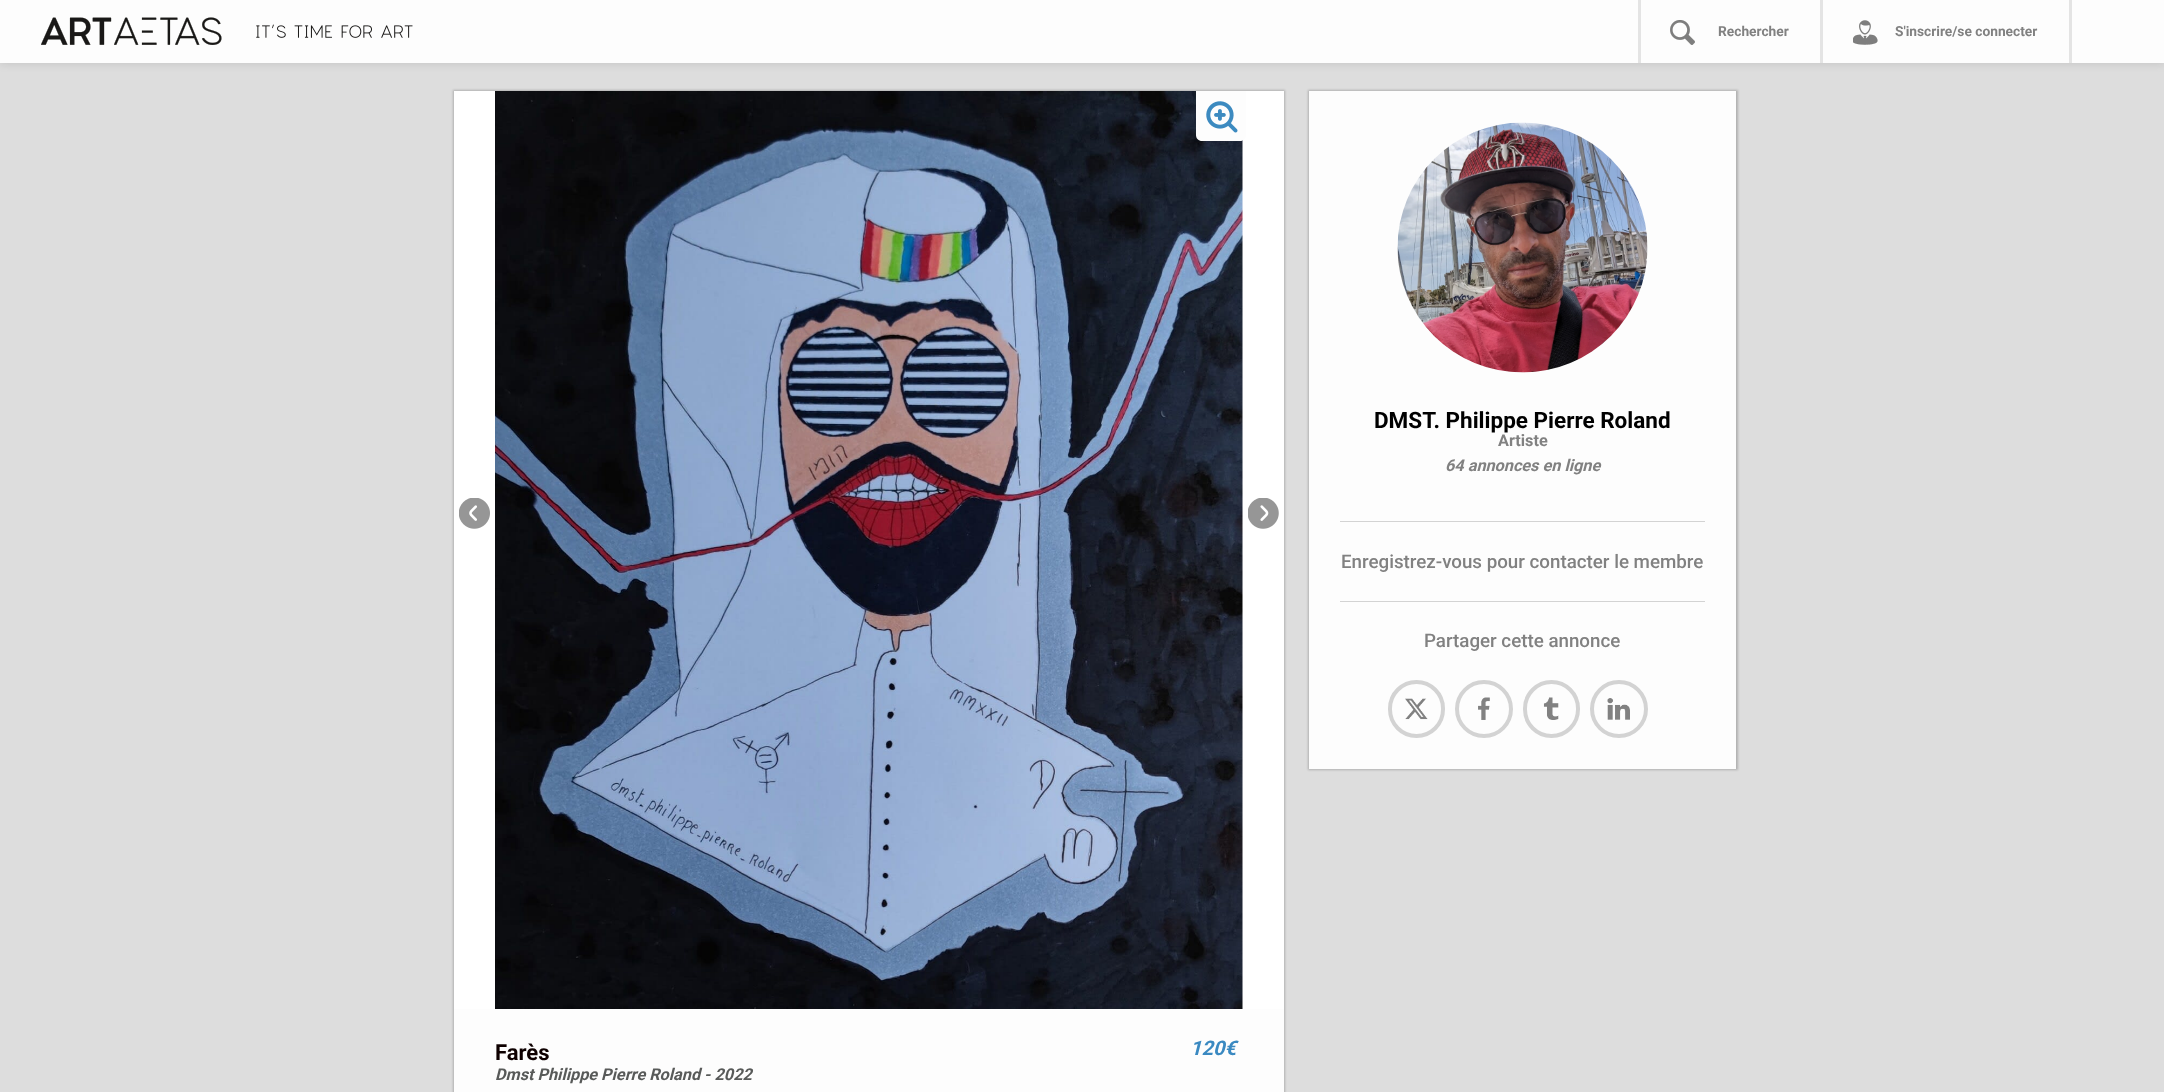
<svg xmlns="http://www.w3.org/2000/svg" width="2164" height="1092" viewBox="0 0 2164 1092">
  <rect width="100%" height="100%" fill="rgb(221,221,221)"/>
  <rect x="0" y="1" width="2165" height="63" fill="rgba(0,0,0,0.1)" filter="blur(4px)"/>
  <rect x="0" y="0" width="2164" height="63" fill="rgb(253,253,253)"/>
  <image x="41" y="17" width="181" height="28" href="pic1.png"/>
  <image x="256" y="24" width="157" height="14" href="pic2.png"/>
  <rect x="1638" y="0" width="3" height="63" fill="rgb(228,228,228)"/>
  <rect x="1820" y="0" width="3" height="63" fill="rgb(228,228,228)"/>
  <image x="1670" y="20" width="25" height="25" href="pic3.png"/>
  <text x="1718" y="36" font-family="Roboto" font-size="13.75" font-weight="bold" fill="rgb(129,129,129)">Rechercher</text>
  <rect x="2069" y="0" width="3" height="63" fill="rgb(228,228,228)"/>
  <image x="1853" y="20" width="25" height="25" href="pic4.png"/>
  <text x="1895" y="36" font-family="Roboto" font-size="13.75" font-weight="bold" fill="rgb(129,129,129)">S'inscrire/se connecter</text>
  <rect x="1308" y="90" width="430" height="680" fill="rgba(0,0,0,0.2)" filter="blur(1px)"/>
  <rect x="1309" y="91" width="427" height="678" fill="rgb(253,253,253)"/>
  <rect x="1340" y="601" width="365" height="1" fill="rgb(211,211,211)"/>
  <image x="1397" y="122" width="251" height="251" href="pic5.png"/>
  <text x="1374" y="428" font-family="Roboto" font-size="22.5" font-weight="bold" fill="rgb(0,0,0)">DMST. Philippe Pierre Roland</text>
  <text x="1498" y="446" font-family="Roboto" font-size="16.25" font-weight="bold" fill="rgb(129,129,129)">Artiste</text>
  <text x="1445" y="471" font-family="Roboto" font-size="16.25" font-weight="bold" font-style="italic" fill="rgb(129,129,129)">64 annonces en ligne</text>
  <rect x="1340" y="521" width="365" height="1" fill="rgb(211,211,211)"/>
  <g font-family="Roboto" font-size="18.75" font-weight="500" fill="rgb(129,129,129)">
    <text x="1341" y="568">Enregistrez-vous pour contacter le membre</text>
    <text x="1424" y="647">Partager cette annonce</text>
  </g>
  <image x="1405" y="698" width="23" height="22" href="pic6.png"/>
  <rect x="1390" y="682" width="53" height="54" rx="26.5" fill="none" stroke="rgb(211,211,211)" stroke-width="4"/>
  <image x="1478" y="697" width="12" height="23" href="pic7.png"/>
  <circle cx="1484" cy="709" r="27" fill="none" stroke="rgb(211,211,211)" stroke-width="4"/>
  <image x="1543" y="697" width="16" height="23" href="pic8.png"/>
  <rect x="1525" y="682" width="53" height="54" rx="26.5" fill="none" stroke="rgb(211,211,211)" stroke-width="4"/>
  <image x="1607" y="698" width="23" height="22" href="pic9.png"/>
  <circle cx="1619" cy="709" r="27" fill="none" stroke="rgb(211,211,211)" stroke-width="4"/>
  <rect x="453" y="90" width="832" height="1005" fill="rgba(0,0,0,0.2)" filter="blur(1px)"/>
  <rect x="454" y="91" width="830" height="918" fill="rgb(255,255,255)"/>
  <image x="459" y="498" width="31" height="31" href="pic10.png"/>
  <image x="495" y="91" width="748" height="918" href="pic11.png"/>
  <image x="1248" y="498" width="31" height="31" href="pic12.png"/>
  <path d="M1196 91H1246V135C1246 138.5 1243.5 141 1240 141H1202C1198.5 141 1196 138.5 1196 135Z" fill="rgb(253,253,253)"/>
  <image x="1206" y="101" width="32" height="32" href="pic13.png"/>
  <rect x="454" y="1009" width="830" height="83" fill="rgb(253,253,253)"/>
  <text x="495" y="1060" font-family="Roboto" font-size="22" font-weight="bold" fill="rgb(14,0,0)">Farès</text>
  <text x="495" y="1080" font-family="Roboto" font-size="16.25" font-weight="bold" font-style="italic" fill="rgb(88,90,89)">Dmst Philippe Pierre Roland - 2022</text>
  <text x="1190" y="1055" font-family="Roboto" font-size="20" font-weight="bold" font-style="italic" fill="rgb(58,137,193)">120€</text>
</svg>
